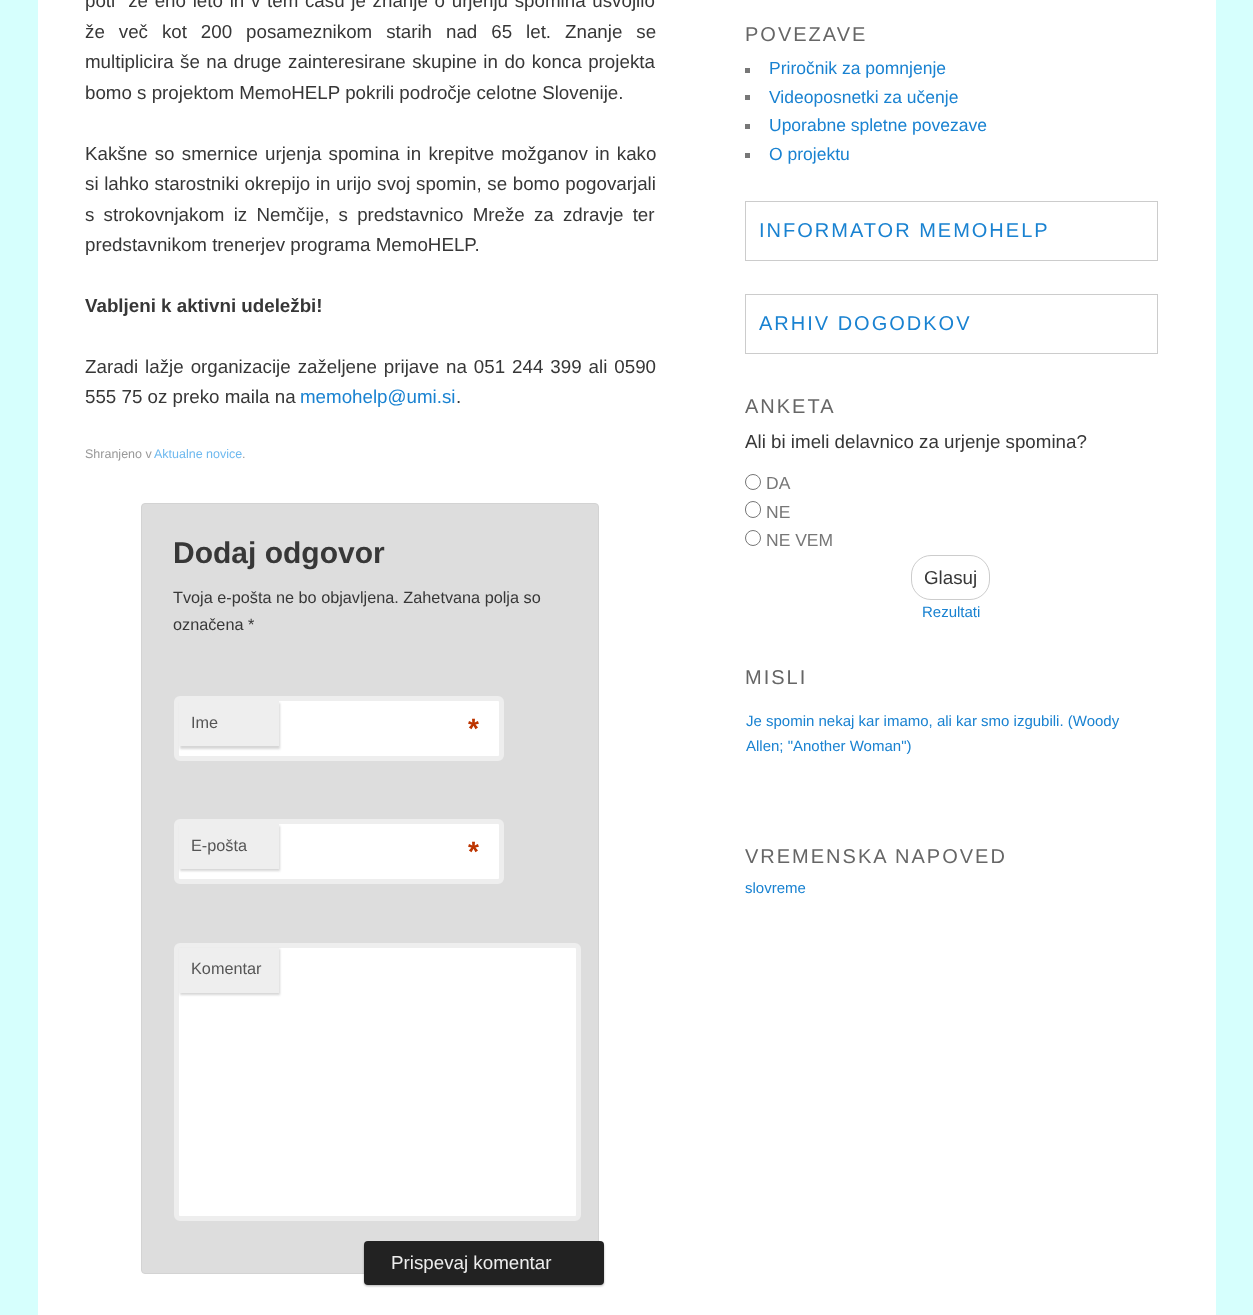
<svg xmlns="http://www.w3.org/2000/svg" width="1253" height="1315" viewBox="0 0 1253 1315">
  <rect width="100%" height="100%" fill="rgb(214,255,253)"/>
  <rect x="38" y="0" width="1178" height="1315" fill="rgb(255,255,255)"/>
  <g font-family="Liberation Sans" font-size="18.75" fill="rgb(55,55,55)">
    <text>
      <tspan x="85" y="7" word-spacing="1.5">poti” že eno leto in v tem času je znanje o urjenju spomina usvojilo</tspan>
      <tspan x="85" y="38" word-spacing="8.75">že več kot 200 posameznikom starih nad 65 let. Znanje se</tspan>
      <tspan x="85" y="68" word-spacing="1.25">multiplicira še na druge zainteresirane skupine in do konca projekta</tspan>
      <tspan x="85" y="99">bomo s projektom MemoHELP pokrili področje celotne Slovenije.</tspan>
    </text>
    <text>
      <tspan x="85" y="160" word-spacing="2">Kakšne so smernice urjenja spomina in krepitve možganov in kako</tspan>
      <tspan x="85" y="190" word-spacing="0.4">si lahko starostniki okrepijo in urijo svoj spomin, se bomo pogovarjali</tspan>
      <tspan x="85" y="221" word-spacing="4">s strokovnjakom iz Nemčije, s predstavnico Mreže za zdravje ter</tspan>
      <tspan x="85" y="251">predstavnikom trenerjev programa MemoHELP.</tspan>
    </text>
  </g>
  <text x="85" y="312" font-family="Liberation Sans" font-size="18.75" font-weight="bold" fill="rgb(55,55,55)">Vabljeni k aktivni udeležbi!</text>
  <g font-family="Liberation Sans" font-size="18.75" fill="rgb(55,55,55)">
    <text>
      <tspan x="85" y="373" word-spacing="1.75">Zaradi lažje organizacije zaželjene prijave na 051 244 399 ali 0590</tspan>
      <tspan x="85" y="403">555 75 oz preko maila na</tspan>
    </text>
  </g>
  <text x="300" y="403" font-family="Liberation Sans" font-size="18.75" fill="rgb(25,130,209)">memohelp@umi.si</text>
  <text x="456" y="403" font-family="Liberation Sans" font-size="18.75" fill="rgb(55,55,55)">.</text>
  <text x="85" y="458" font-family="Liberation Sans" font-size="12.5" fill="rgb(153,153,153)">Shranjeno v</text>
  <text x="154" y="458" font-family="Liberation Sans" font-size="12.5" fill="rgb(110,185,239)">Aktualne novice</text>
  <text x="242" y="458" font-family="Liberation Sans" font-size="12.5" fill="rgb(153,153,153)">.</text>
  <rect x="141.5" y="503.5" width="457" height="770" rx="3.5" fill="rgb(221,221,221)" stroke="rgb(211,211,211)"/>
  <text x="173" y="563" font-family="Liberation Sans" font-size="30" font-weight="bold" fill="rgb(55,55,55)">Dodaj odgovor</text>
  <g font-family="Liberation Sans" font-size="16.25" fill="rgb(55,55,55)">
    <text>
      <tspan x="173" y="603">Tvoja e-pošta ne bo objavljena. Zahetvana polja so</tspan>
      <tspan x="173" y="630">označena *</tspan>
    </text>
  </g>
  <rect x="176.5" y="698.5" width="325" height="60" rx="3.5" fill="rgb(255,255,255)" stroke="rgb(238,238,238)" stroke-width="5"/>
  <rect x="180" y="703" width="100" height="46" fill="rgba(204,204,204,0.8)" filter="blur(1px)"/>
  <rect x="179" y="701" width="100" height="45" fill="rgb(238,238,238)"/>
  <text x="191" y="728" font-family="Liberation Sans" font-size="16.25" fill="rgb(85,85,85)">Ime</text>
  <text x="468" y="738" font-family="Liberation Sans" font-size="28" font-weight="bold" fill="rgb(189,53,0)">*</text>
  <rect x="176.5" y="821.5" width="325" height="60" rx="3.5" fill="rgb(255,255,255)" stroke="rgb(238,238,238)" stroke-width="5"/>
  <rect x="180" y="826" width="100" height="45" fill="rgba(204,204,204,0.8)" filter="blur(1px)"/>
  <rect x="179" y="824" width="100" height="45" fill="rgb(238,238,238)"/>
  <text x="191" y="851" font-family="Liberation Sans" font-size="16.25" fill="rgb(85,85,85)">E-pošta</text>
  <text x="468" y="861" font-family="Liberation Sans" font-size="28" font-weight="bold" fill="rgb(189,53,0)">*</text>
  <rect x="176.5" y="945.5" width="402" height="273" rx="3.5" fill="rgb(255,255,255)" stroke="rgb(238,238,238)" stroke-width="5"/>
  <rect x="180" y="949" width="100" height="46" fill="rgba(204,204,204,0.8)" filter="blur(1px)"/>
  <rect x="179" y="948" width="100" height="45" fill="rgb(238,238,238)"/>
  <text x="191" y="974" font-family="Liberation Sans" font-size="16.25" fill="rgb(85,85,85)">Komentar</text>
  <rect x="364" y="1243" width="240" height="43" rx="4" fill="rgba(0,0,0,0.3)" filter="blur(1px)"/>
  <rect x="364" y="1241" width="240" height="44" rx="4" fill="rgb(34,34,34)"/>
  <text x="391" y="1269" font-family="Liberation Sans" font-size="18.75" fill="rgb(238,238,238)">Prispevaj komentar</text>
  <text x="745" y="41" font-family="Liberation Sans" font-size="20" letter-spacing="2" fill="rgb(102,102,102)">POVEZAVE</text>
  <rect x="745" y="68" width="5" height="5" fill="rgb(119,119,119)"/>
  <text x="769" y="74" font-family="Liberation Sans" font-size="17.5" fill="rgb(25,130,209)">Priročnik za pomnjenje</text>
  <rect x="745" y="95" width="5" height="5" fill="rgb(119,119,119)"/>
  <text x="769" y="103" font-family="Liberation Sans" font-size="17.5" fill="rgb(25,130,209)">Videoposnetki za učenje</text>
  <rect x="745" y="124" width="5" height="5" fill="rgb(119,119,119)"/>
  <text x="769" y="131" font-family="Liberation Sans" font-size="17.5" fill="rgb(25,130,209)">Uporabne spletne povezave</text>
  <rect x="745" y="153" width="5" height="5" fill="rgb(119,119,119)"/>
  <text x="769" y="160" font-family="Liberation Sans" font-size="17.5" fill="rgb(25,130,209)">O projektu</text>
  <rect x="745.5" y="201.5" width="412" height="59" fill="none" stroke="rgb(204,204,204)"/>
  <text x="759" y="237" font-family="Liberation Sans" font-size="20" letter-spacing="2" fill="rgb(25,130,209)">INFORMATOR MEMOHELP</text>
  <rect x="745.5" y="294.5" width="412" height="59" fill="none" stroke="rgb(204,204,204)"/>
  <text x="759" y="330" font-family="Liberation Sans" font-size="20" letter-spacing="2" fill="rgb(25,130,209)">ARHIV DOGODKOV</text>
  <text x="745" y="413" font-family="Liberation Sans" font-size="20" letter-spacing="2" fill="rgb(102,102,102)">ANKETA</text>
  <text x="745" y="448" font-family="Liberation Sans" font-size="18.75" fill="rgb(55,55,55)">Ali bi imeli delavnico za urjenje spomina?</text>
  <circle cx="753" cy="482" r="7.5" fill="none" stroke="rgb(118,118,118)"/>
  <text x="766" y="489" font-family="Liberation Sans" font-size="17.5" fill="rgb(119,119,119)">DA</text>
  <rect x="745.5" y="501.5" width="15" height="16" rx="7.5" fill="none" stroke="rgb(118,118,118)"/>
  <text x="766" y="518" font-family="Liberation Sans" font-size="17.5" fill="rgb(119,119,119)">NE</text>
  <circle cx="753" cy="538" r="7.5" fill="none" stroke="rgb(118,118,118)"/>
  <text x="766" y="546" font-family="Liberation Sans" font-size="17.5" fill="rgb(119,119,119)">NE VEM</text>
  <rect x="911.5" y="555.5" width="78" height="44" rx="19.5" fill="none" stroke="rgb(204,204,204)"/>
  <text x="924" y="584" font-family="Liberation Sans" font-size="18.75" fill="rgb(55,55,55)">Glasuj</text>
  <text x="922" y="617" font-family="Liberation Sans" font-size="15" fill="rgb(25,130,209)">Rezultati</text>
  <text x="745" y="684" font-family="Liberation Sans" font-size="20" letter-spacing="2" fill="rgb(102,102,102)">MISLI</text>
  <g font-family="Liberation Sans" font-size="15" fill="rgb(25,130,209)">
    <text>
      <tspan x="746" y="726">Je spomin nekaj kar imamo, ali kar smo izgubili. (Woody</tspan>
      <tspan x="746" y="751">Allen; "Another Woman")</tspan>
    </text>
  </g>
  <text x="745" y="863" font-family="Liberation Sans" font-size="20" letter-spacing="2" fill="rgb(102,102,102)">VREMENSKA NAPOVED</text>
  <text x="745" y="893" font-family="Liberation Sans" font-size="15" fill="rgb(25,130,209)">slovreme</text>
</svg>
